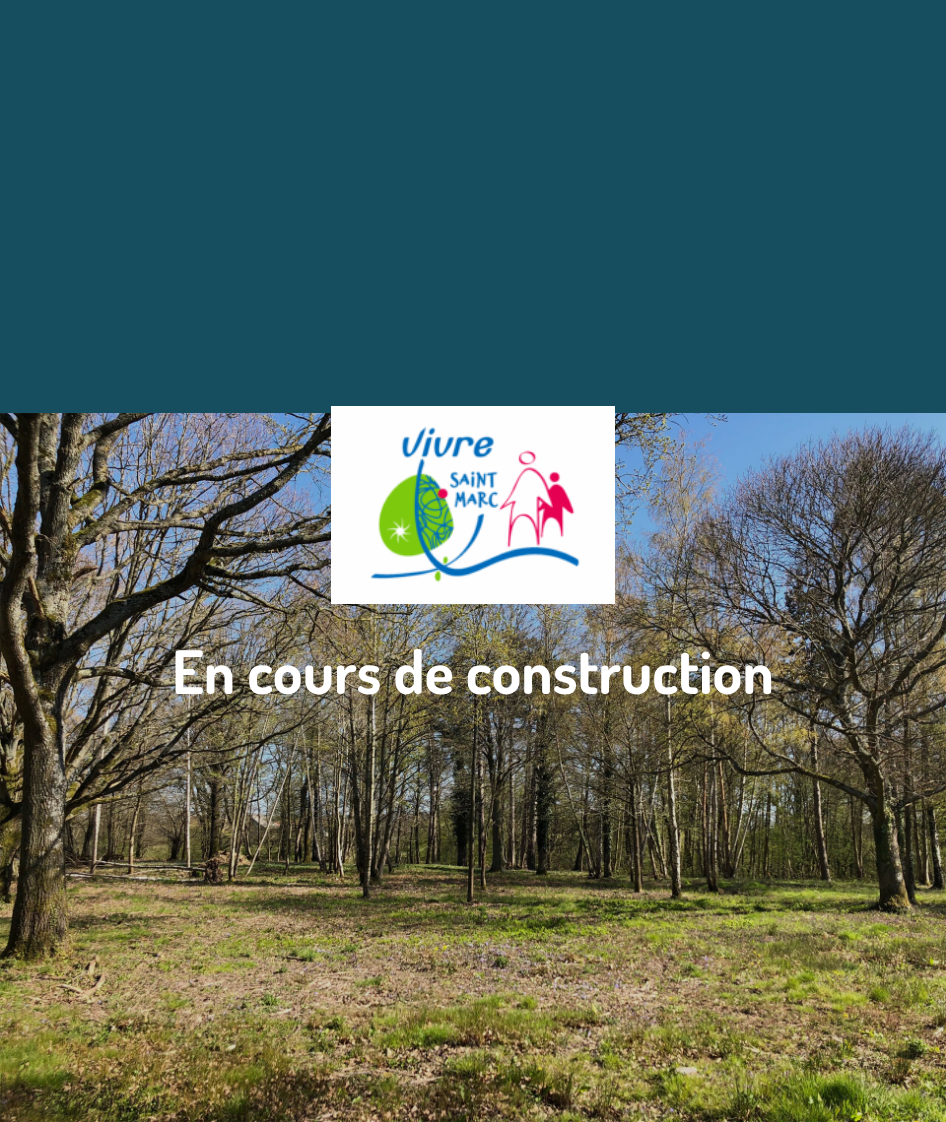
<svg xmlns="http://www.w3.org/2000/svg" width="946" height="1122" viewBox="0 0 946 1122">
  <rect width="100%" height="100%" fill="rgb(255,255,255)"/>
  <image x="0" y="413" width="946" height="709" href="pic1.png"/>
  <rect x="0" y="0" width="946" height="413" fill="rgb(22,78,95)"/>
  <image x="331" y="406" width="284" height="198" href="pic2.png"/>
  <text x="172" y="694" font-family="Dosis" font-size="60" font-weight="bold" fill="rgb(255,255,255)">En cours de construction</text>
</svg>
